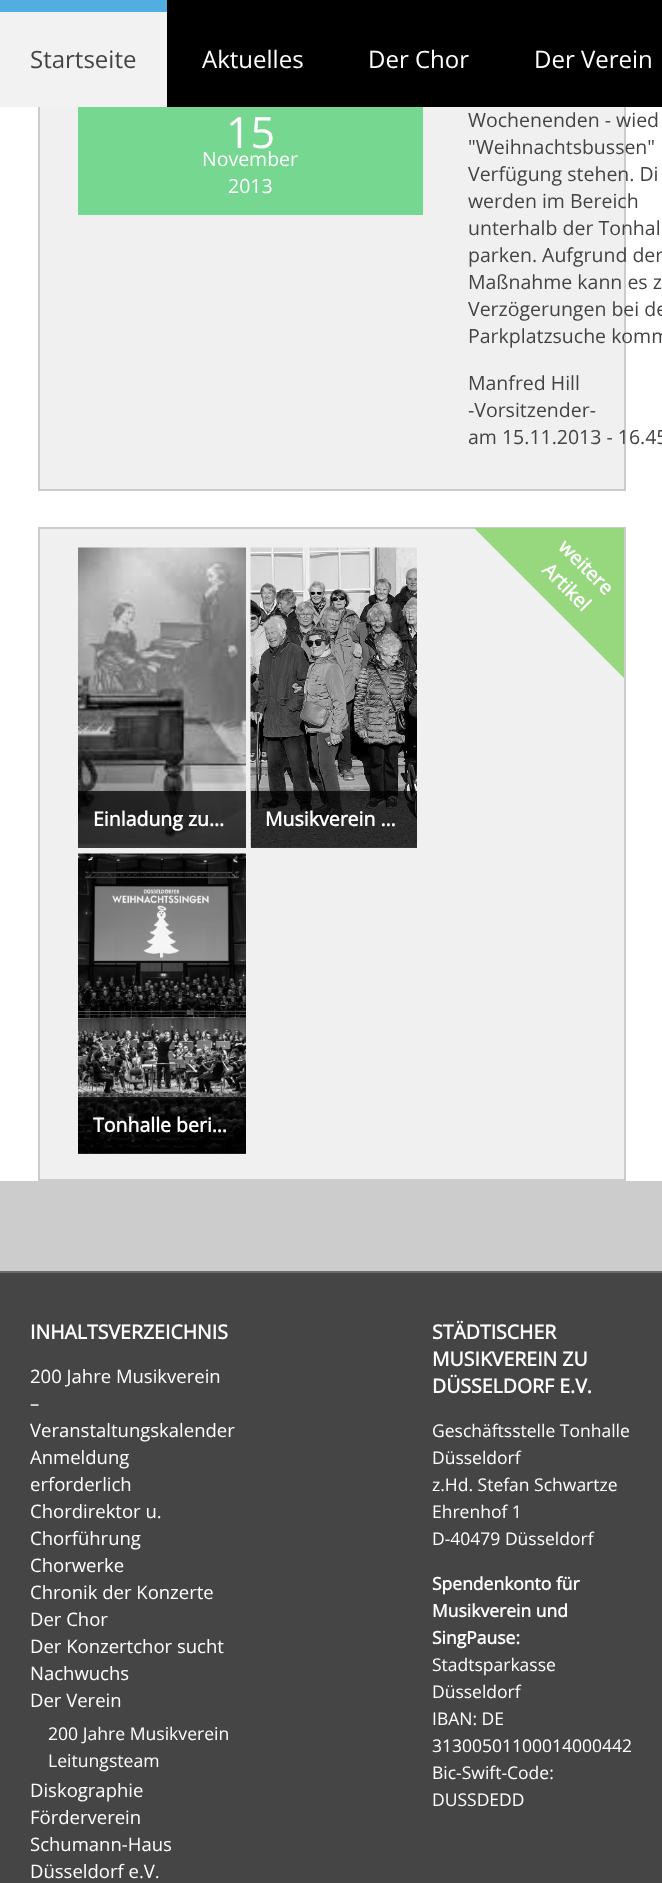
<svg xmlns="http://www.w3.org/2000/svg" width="662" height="1883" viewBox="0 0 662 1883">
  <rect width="100%" height="100%" fill="rgb(204,204,204)"/>
  <rect x="0" y="107" width="662" height="1074" fill="rgb(255,255,255)"/>
  <rect x="40" y="107" width="584" height="382" fill="rgb(240,240,240)"/>
  <rect x="39" y="-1" width="586" height="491" fill="none" stroke="rgb(204,204,204)" stroke-width="2"/>
  <rect x="167" y="0" width="495" height="107" fill="rgb(0,0,0)"/>
  <rect x="0" y="12" width="167" height="95" fill="rgb(242,242,242)"/>
  <rect x="0" y="0" width="167" height="12" fill="rgb(82,173,224)"/>
  <text x="30" y="68" font-family="Open Sans" font-size="24" fill="rgb(67,67,67)">Startseite</text>
  <g font-family="Open Sans" font-size="24" fill="rgb(255,255,255)">
    <text x="202" y="68">Aktuelles</text>
    <text x="368" y="68">Der Chor</text>
    <text x="534" y="68">Der Verein</text>
  </g>
  <rect x="78" y="107" width="345" height="108" fill="rgb(118,215,145)"/>
  <text x="226" y="148" font-family="Open Sans" font-size="43" fill="rgb(255,255,255)">15</text>
  <g font-family="Open Sans" font-size="19.5" fill="rgb(255,255,255)">
    <text x="202" y="166">November</text>
    <text x="228" y="193">2013</text>
  </g>
  <g font-family="Open Sans" font-size="19.5" fill="rgb(67,67,67)">
    <text>
      <tspan x="468" y="127">Wochenenden - wied</tspan>
      <tspan x="468" y="154">"Weihnachtsbussen"</tspan>
      <tspan x="468" y="181">Verfügung stehen. Di</tspan>
      <tspan x="468" y="208">werden im Bereich</tspan>
      <tspan x="468" y="235">unterhalb der Tonhal</tspan>
      <tspan x="468" y="262">parken. Aufgrund der</tspan>
      <tspan x="468" y="289">Maßnahme kann es z</tspan>
      <tspan x="468" y="316">Verzögerungen bei de</tspan>
      <tspan x="468" y="343">Parkplatzsuche komm</tspan>
    </text>
    <text>
      <tspan x="468" y="390">Manfred Hill</tspan>
      <tspan x="468" y="417">-Vorsitzender-</tspan>
      <tspan x="468" y="444">am 15.11.2013 - 16.45</tspan>
    </text>
  </g>
  <rect x="39" y="528" width="586" height="652" fill="rgb(240,240,240)" stroke="rgb(204,204,204)" stroke-width="2"/>
  <path d="M624 528V678L474 528Z" fill="rgb(151,216,127)"/>
  <g font-family="Open Sans" font-size="19.5" font-weight="bold" fill="rgb(255,255,255)">
    <text x="557" y="548" transform="rotate(45 557 548)">weitere</text>
    <text x="541" y="571" transform="rotate(45 541 571)">Artikel</text>
  </g>
  <image x="78" y="547" width="168" height="301" href="pic1.png"/>
  <rect x="78" y="791" width="168" height="57" fill="rgba(0,0,0,0.75)"/>
  <text x="93" y="826" font-family="Open Sans" font-size="19.5" font-weight="bold" fill="rgb(255,255,255)">Einladung zu…</text>
  <image x="250" y="547" width="167" height="301" href="pic2.png"/>
  <rect x="251" y="791" width="166" height="57" fill="rgba(0,0,0,0.75)"/>
  <text x="265" y="826" font-family="Open Sans" font-size="19.5" font-weight="bold" fill="rgb(255,255,255)">Musikverein …</text>
  <image x="78" y="853" width="168" height="301" href="pic3.png"/>
  <rect x="78" y="1097" width="168" height="57" fill="rgba(0,0,0,0.75)"/>
  <text x="93" y="1132" font-family="Open Sans" font-size="19.5" font-weight="bold" fill="rgb(255,255,255)">Tonhalle beri…</text>
  <rect x="0" y="1273" width="662" height="610" fill="rgb(69,69,69)"/>
  <rect x="0" y="1271" width="662" height="2" fill="rgb(106,106,106)"/>
  <text x="30" y="1339" font-family="Open Sans" font-size="19.5" font-weight="bold" fill="rgb(255,255,255)">INHALTSVERZEICHNIS</text>
  <g font-family="Open Sans" font-size="18.5" fill="rgb(255,255,255)">
    <text>
      <tspan x="30" y="1383">200 Jahre Musikverein</tspan>
      <tspan x="30" y="1410">–</tspan>
      <tspan x="30" y="1437">Veranstaltungskalender</tspan>
      <tspan x="30" y="1464">Anmeldung</tspan>
      <tspan x="30" y="1491">erforderlich</tspan>
      <tspan x="30" y="1518">Chordirektor u.</tspan>
      <tspan x="30" y="1545">Chorführung</tspan>
      <tspan x="30" y="1572">Chorwerke</tspan>
      <tspan x="30" y="1599">Chronik der Konzerte</tspan>
      <tspan x="30" y="1626">Der Chor</tspan>
      <tspan x="30" y="1653">Der Konzertchor sucht</tspan>
      <tspan x="30" y="1680">Nachwuchs</tspan>
      <tspan x="30" y="1707">Der Verein</tspan>
    </text>
  </g>
  <g font-family="Open Sans" font-size="17.6" fill="rgb(255,255,255)">
    <text>
      <tspan x="48" y="1740">200 Jahre Musikverein</tspan>
      <tspan x="48" y="1767">Leitungsteam</tspan>
    </text>
  </g>
  <g font-family="Open Sans" font-size="18.5" fill="rgb(255,255,255)">
    <text>
      <tspan x="30" y="1797">Diskographie</tspan>
      <tspan x="30" y="1824">Förderverein</tspan>
      <tspan x="30" y="1851">Schumann-Haus</tspan>
      <tspan x="30" y="1878">Düsseldorf e.V.</tspan>
    </text>
  </g>
  <g font-family="Open Sans" font-size="19.5" font-weight="bold" fill="rgb(255,255,255)">
    <text>
      <tspan x="432" y="1339">STÄDTISCHER</tspan>
      <tspan x="432" y="1366">MUSIKVEREIN ZU</tspan>
      <tspan x="432" y="1393">DÜSSELDORF E.V.</tspan>
    </text>
  </g>
  <g font-family="Open Sans" font-size="17.5" fill="rgb(255,255,255)">
    <text>
      <tspan x="432" y="1437">Geschäftsstelle Tonhalle</tspan>
      <tspan x="432" y="1464">Düsseldorf</tspan>
      <tspan x="432" y="1491">z.Hd. Stefan Schwartze</tspan>
      <tspan x="432" y="1518">Ehrenhof 1</tspan>
      <tspan x="432" y="1545">D-40479 Düsseldorf</tspan>
    </text>
  </g>
  <g font-family="Open Sans" font-size="17.5" font-weight="bold" fill="rgb(255,255,255)">
    <text>
      <tspan x="432" y="1590">Spendenkonto für</tspan>
      <tspan x="432" y="1617">Musikverein und</tspan>
      <tspan x="432" y="1644">SingPause:</tspan>
    </text>
  </g>
  <g font-family="Open Sans" font-size="17.5" fill="rgb(255,255,255)">
    <text>
      <tspan x="432" y="1671">Stadtsparkasse</tspan>
      <tspan x="432" y="1698">Düsseldorf</tspan>
      <tspan x="432" y="1725">IBAN: DE</tspan>
      <tspan x="432" y="1752">31300501100014000442</tspan>
      <tspan x="432" y="1779">Bic-Swift-Code:</tspan>
      <tspan x="432" y="1806">DUSSDEDD</tspan>
    </text>
  </g>
</svg>
